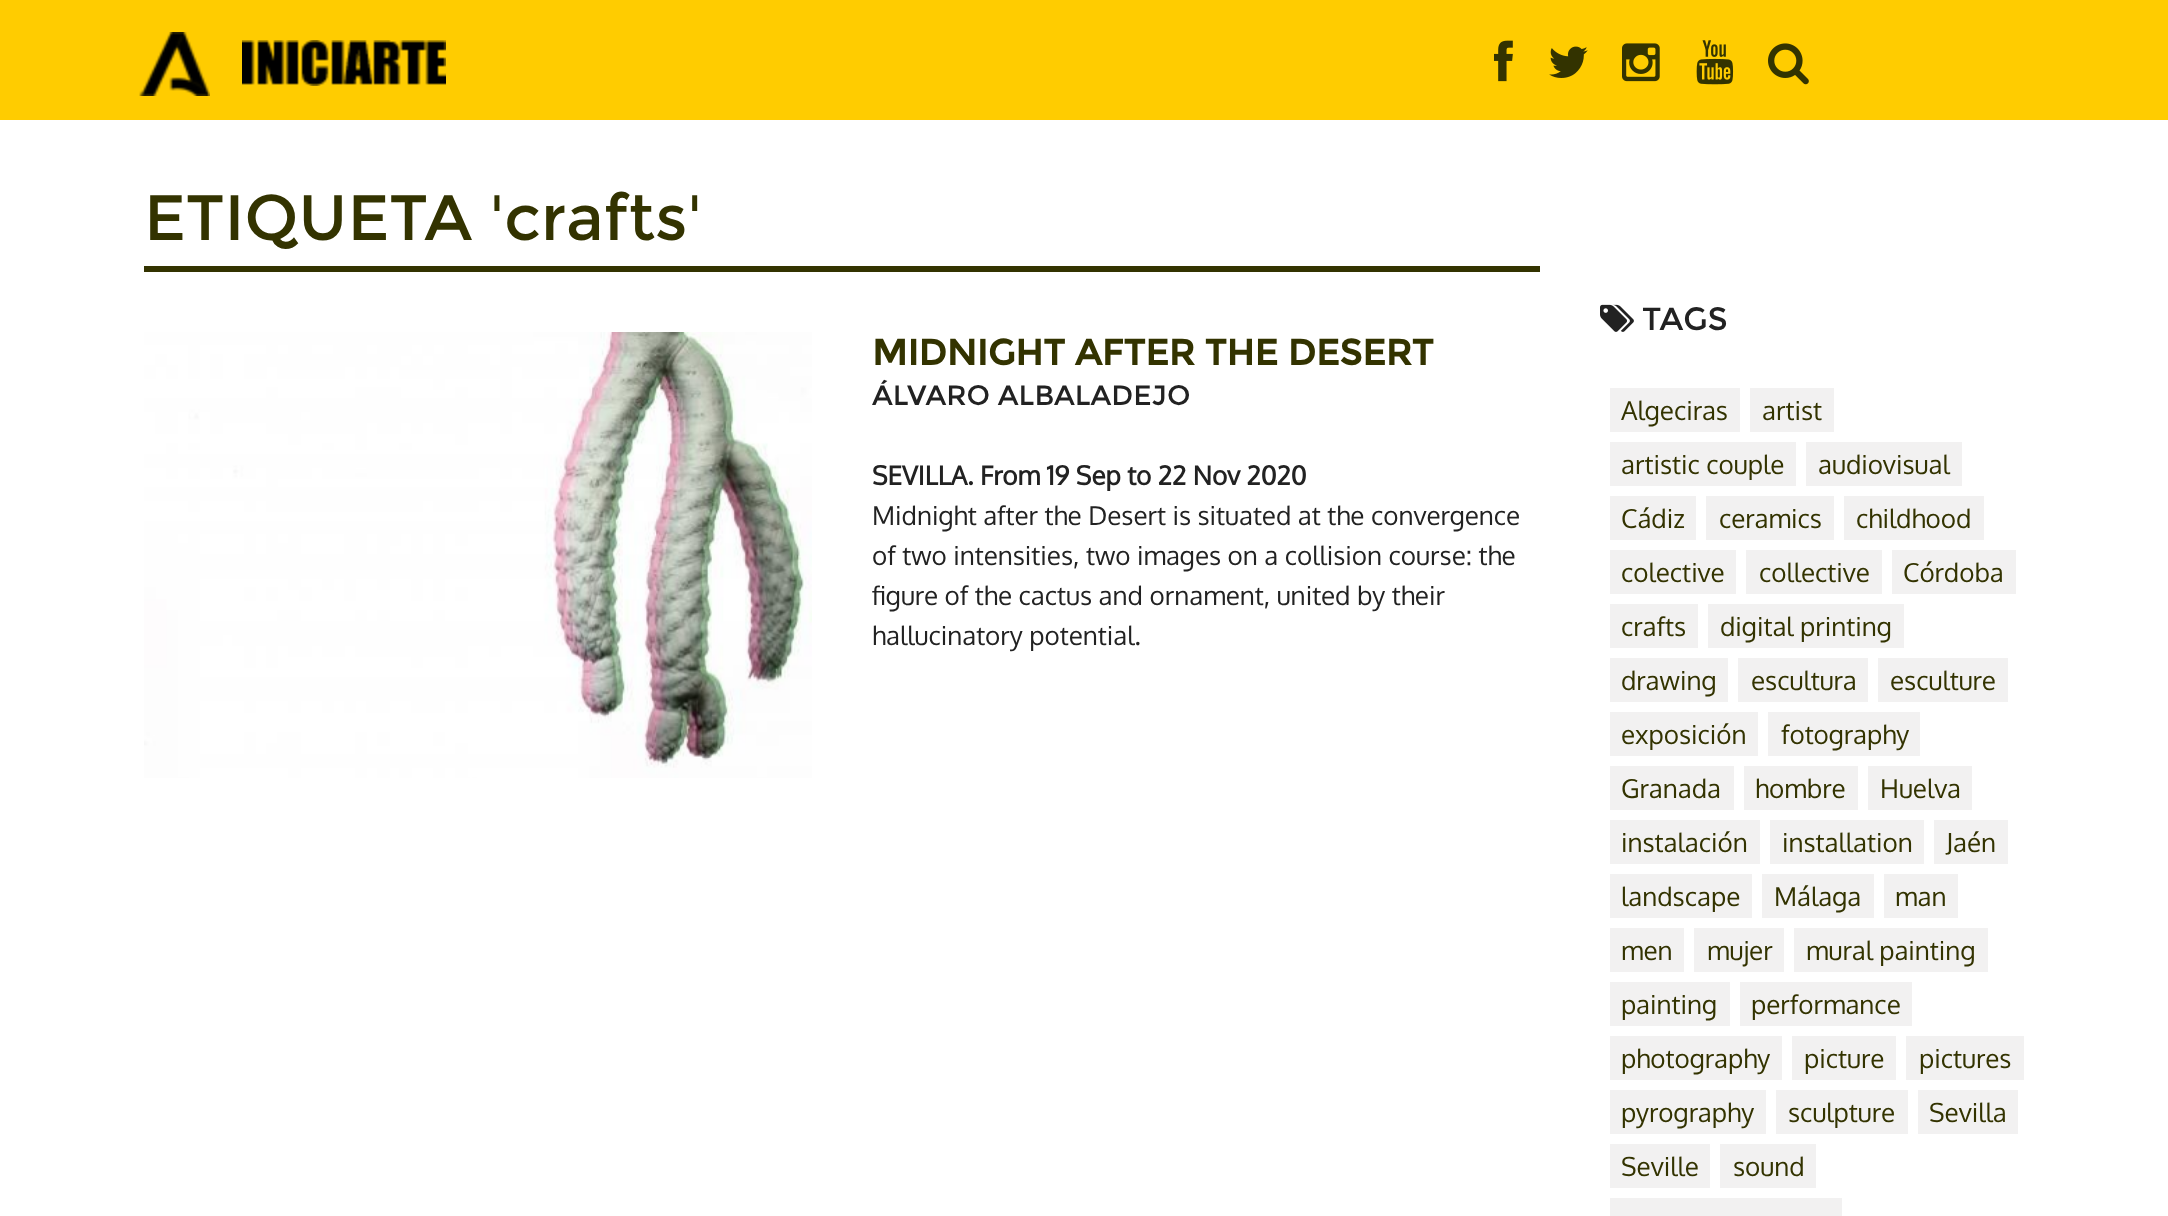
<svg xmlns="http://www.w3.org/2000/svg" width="2168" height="1216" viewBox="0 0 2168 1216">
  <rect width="100%" height="100%" fill="rgb(255,204,0)"/>
  <image x="139" y="32" width="71" height="64" href="pic1.png"/>
  <image x="242" y="40" width="204" height="46" href="pic2.png"/>
  <image x="1494" y="40" width="19" height="42" href="pic3.png"/>
  <image x="1549" y="46" width="39" height="32" href="pic4.png"/>
  <image x="1622" y="43" width="38" height="39" href="pic5.png"/>
  <image x="1696" y="40" width="38" height="45" href="pic6.png"/>
  <image x="1768" y="43" width="41" height="42" href="pic7.png"/>
  <rect x="0" y="120" width="2168" height="1096" fill="rgb(255,255,255)"/>
  <rect x="144" y="266" width="1396" height="6" fill="rgb(51,51,0)"/>
  <text x="144" y="240" font-family="Montserrat" font-size="64" fill="rgb(51,51,0)">ETIQUETA 'crafts'</text>
  <image x="144" y="332" width="668" height="446" href="pic8.png"/>
  <text x="872" y="365" font-family="Montserrat" font-size="36" font-weight="bold" fill="rgb(51,51,0)">MIDNIGHT AFTER THE DESERT</text>
  <text x="872" y="405" font-family="Montserrat" font-size="28" fill="rgb(34,34,34)">ÁLVARO ALBALADEJO</text>
  <text x="872" y="485" font-family="Oxygen" font-size="26" font-weight="bold" fill="rgb(34,34,34)">SEVILLA. From 19 Sep to 22 Nov 2020</text>
  <g font-family="Oxygen" font-size="26" fill="rgb(34,34,34)">
    <text>
      <tspan x="872" y="525">Midnight after the Desert is situated at the convergence</tspan>
      <tspan x="872" y="565">of two intensities, two images on a collision course: the</tspan>
      <tspan x="872" y="605">figure of the cactus and ornament, united by their</tspan>
      <tspan x="872" y="645">hallucinatory potential.</tspan>
    </text>
  </g>
  <image x="1600" y="304" width="34" height="28" href="pic9.png"/>
  <text x="1642" y="330" font-family="Montserrat" font-size="32" fill="rgb(34,34,34)">TAGS</text>
  <rect x="1610" y="388" width="130" height="44" fill="rgb(242,241,241)"/>
  <text x="1621" y="420" font-family="Oxygen" font-size="26" fill="rgb(51,51,0)">Algeciras</text>
  <rect x="1750" y="388" width="84" height="44" fill="rgb(242,241,241)"/>
  <text x="1762" y="420" font-family="Oxygen" font-size="26" fill="rgb(51,51,0)">artist</text>
  <rect x="1610" y="442" width="186" height="44" fill="rgb(242,241,241)"/>
  <text x="1621" y="474" font-family="Oxygen" font-size="26" fill="rgb(51,51,0)">artistic couple</text>
  <rect x="1806" y="442" width="156" height="44" fill="rgb(242,241,241)"/>
  <text x="1818" y="474" font-family="Oxygen" font-size="26" fill="rgb(51,51,0)">audiovisual</text>
  <rect x="1610" y="496" width="86" height="44" fill="rgb(242,241,241)"/>
  <text x="1621" y="528" font-family="Oxygen" font-size="26" fill="rgb(51,51,0)">Cádiz</text>
  <rect x="1706" y="496" width="128" height="44" fill="rgb(242,241,241)"/>
  <text x="1719" y="528" font-family="Oxygen" font-size="26" fill="rgb(51,51,0)">ceramics</text>
  <rect x="1844" y="496" width="140" height="44" fill="rgb(242,241,241)"/>
  <text x="1856" y="528" font-family="Oxygen" font-size="26" fill="rgb(51,51,0)">childhood</text>
  <rect x="1610" y="550" width="126" height="44" fill="rgb(242,241,241)"/>
  <text x="1621" y="582" font-family="Oxygen" font-size="26" fill="rgb(51,51,0)">colective</text>
  <rect x="1746" y="550" width="136" height="44" fill="rgb(242,241,241)"/>
  <text x="1759" y="582" font-family="Oxygen" font-size="26" fill="rgb(51,51,0)">collective</text>
  <rect x="1892" y="550" width="124" height="44" fill="rgb(242,241,241)"/>
  <text x="1903" y="582" font-family="Oxygen" font-size="26" fill="rgb(51,51,0)">Córdoba</text>
  <rect x="1610" y="604" width="88" height="44" fill="rgb(242,241,241)"/>
  <text x="1621" y="636" font-family="Oxygen" font-size="26" fill="rgb(51,51,0)">crafts</text>
  <rect x="1708" y="604" width="196" height="44" fill="rgb(242,241,241)"/>
  <text x="1720" y="636" font-family="Oxygen" font-size="26" fill="rgb(51,51,0)">digital printing</text>
  <rect x="1610" y="658" width="118" height="44" fill="rgb(242,241,241)"/>
  <text x="1621" y="690" font-family="Oxygen" font-size="26" fill="rgb(51,51,0)">drawing</text>
  <rect x="1738" y="658" width="130" height="44" fill="rgb(242,241,241)"/>
  <text x="1751" y="690" font-family="Oxygen" font-size="26" fill="rgb(51,51,0)">escultura</text>
  <rect x="1878" y="658" width="130" height="44" fill="rgb(242,241,241)"/>
  <text x="1890" y="690" font-family="Oxygen" font-size="26" fill="rgb(51,51,0)">esculture</text>
  <rect x="1610" y="712" width="148" height="44" fill="rgb(242,241,241)"/>
  <text x="1621" y="744" font-family="Oxygen" font-size="26" fill="rgb(51,51,0)">exposición</text>
  <rect x="1768" y="712" width="152" height="44" fill="rgb(242,241,241)"/>
  <text x="1781" y="744" font-family="Oxygen" font-size="26" fill="rgb(51,51,0)">fotography</text>
  <rect x="1610" y="766" width="124" height="44" fill="rgb(242,241,241)"/>
  <text x="1621" y="798" font-family="Oxygen" font-size="26" fill="rgb(51,51,0)">Granada</text>
  <rect x="1744" y="766" width="114" height="44" fill="rgb(242,241,241)"/>
  <text x="1755" y="798" font-family="Oxygen" font-size="26" fill="rgb(51,51,0)">hombre</text>
  <rect x="1868" y="766" width="104" height="44" fill="rgb(242,241,241)"/>
  <text x="1880" y="798" font-family="Oxygen" font-size="26" fill="rgb(51,51,0)">Huelva</text>
  <rect x="1610" y="820" width="150" height="44" fill="rgb(242,241,241)"/>
  <text x="1621" y="852" font-family="Oxygen" font-size="26" fill="rgb(51,51,0)">instalación</text>
  <rect x="1770" y="820" width="154" height="44" fill="rgb(242,241,241)"/>
  <text x="1782" y="852" font-family="Oxygen" font-size="26" fill="rgb(51,51,0)">installation</text>
  <rect x="1934" y="820" width="74" height="44" fill="rgb(242,241,241)"/>
  <text x="1946" y="852" font-family="Oxygen" font-size="26" fill="rgb(51,51,0)">Jaén</text>
  <rect x="1610" y="874" width="142" height="44" fill="rgb(242,241,241)"/>
  <text x="1621" y="906" font-family="Oxygen" font-size="26" fill="rgb(51,51,0)">landscape</text>
  <rect x="1762" y="874" width="112" height="44" fill="rgb(242,241,241)"/>
  <text x="1774" y="906" font-family="Oxygen" font-size="26" fill="rgb(51,51,0)">Málaga</text>
  <rect x="1884" y="874" width="74" height="44" fill="rgb(242,241,241)"/>
  <text x="1895" y="906" font-family="Oxygen" font-size="26" fill="rgb(51,51,0)">man</text>
  <rect x="1610" y="928" width="74" height="44" fill="rgb(242,241,241)"/>
  <text x="1621" y="960" font-family="Oxygen" font-size="26" fill="rgb(51,51,0)">men</text>
  <rect x="1694" y="928" width="90" height="44" fill="rgb(242,241,241)"/>
  <text x="1707" y="960" font-family="Oxygen" font-size="26" fill="rgb(51,51,0)">mujer</text>
  <rect x="1794" y="928" width="194" height="44" fill="rgb(242,241,241)"/>
  <text x="1806" y="960" font-family="Oxygen" font-size="26" fill="rgb(51,51,0)">mural painting</text>
  <rect x="1610" y="982" width="120" height="44" fill="rgb(242,241,241)"/>
  <text x="1621" y="1014" font-family="Oxygen" font-size="26" fill="rgb(51,51,0)">painting</text>
  <rect x="1740" y="982" width="172" height="44" fill="rgb(242,241,241)"/>
  <text x="1751" y="1014" font-family="Oxygen" font-size="26" fill="rgb(51,51,0)">performance</text>
  <rect x="1610" y="1036" width="172" height="44" fill="rgb(242,241,241)"/>
  <text x="1621" y="1068" font-family="Oxygen" font-size="26" fill="rgb(51,51,0)">photography</text>
  <rect x="1792" y="1036" width="104" height="44" fill="rgb(242,241,241)"/>
  <text x="1804" y="1068" font-family="Oxygen" font-size="26" fill="rgb(51,51,0)">picture</text>
  <rect x="1906" y="1036" width="118" height="44" fill="rgb(242,241,241)"/>
  <text x="1919" y="1068" font-family="Oxygen" font-size="26" fill="rgb(51,51,0)">pictures</text>
  <rect x="1610" y="1090" width="156" height="44" fill="rgb(242,241,241)"/>
  <text x="1621" y="1122" font-family="Oxygen" font-size="26" fill="rgb(51,51,0)">pyrography</text>
  <rect x="1776" y="1090" width="132" height="44" fill="rgb(242,241,241)"/>
  <text x="1788" y="1122" font-family="Oxygen" font-size="26" fill="rgb(51,51,0)">sculpture</text>
  <rect x="1918" y="1090" width="100" height="44" fill="rgb(242,241,241)"/>
  <text x="1929" y="1122" font-family="Oxygen" font-size="26" fill="rgb(51,51,0)">Sevilla</text>
  <rect x="1610" y="1144" width="100" height="44" fill="rgb(242,241,241)"/>
  <text x="1621" y="1176" font-family="Oxygen" font-size="26" fill="rgb(51,51,0)">Seville</text>
  <rect x="1720" y="1144" width="96" height="44" fill="rgb(242,241,241)"/>
  <text x="1733" y="1176" font-family="Oxygen" font-size="26" fill="rgb(51,51,0)">sound</text>
  <rect x="1610" y="1198" width="232" height="18" fill="rgb(242,241,241)"/>
</svg>
